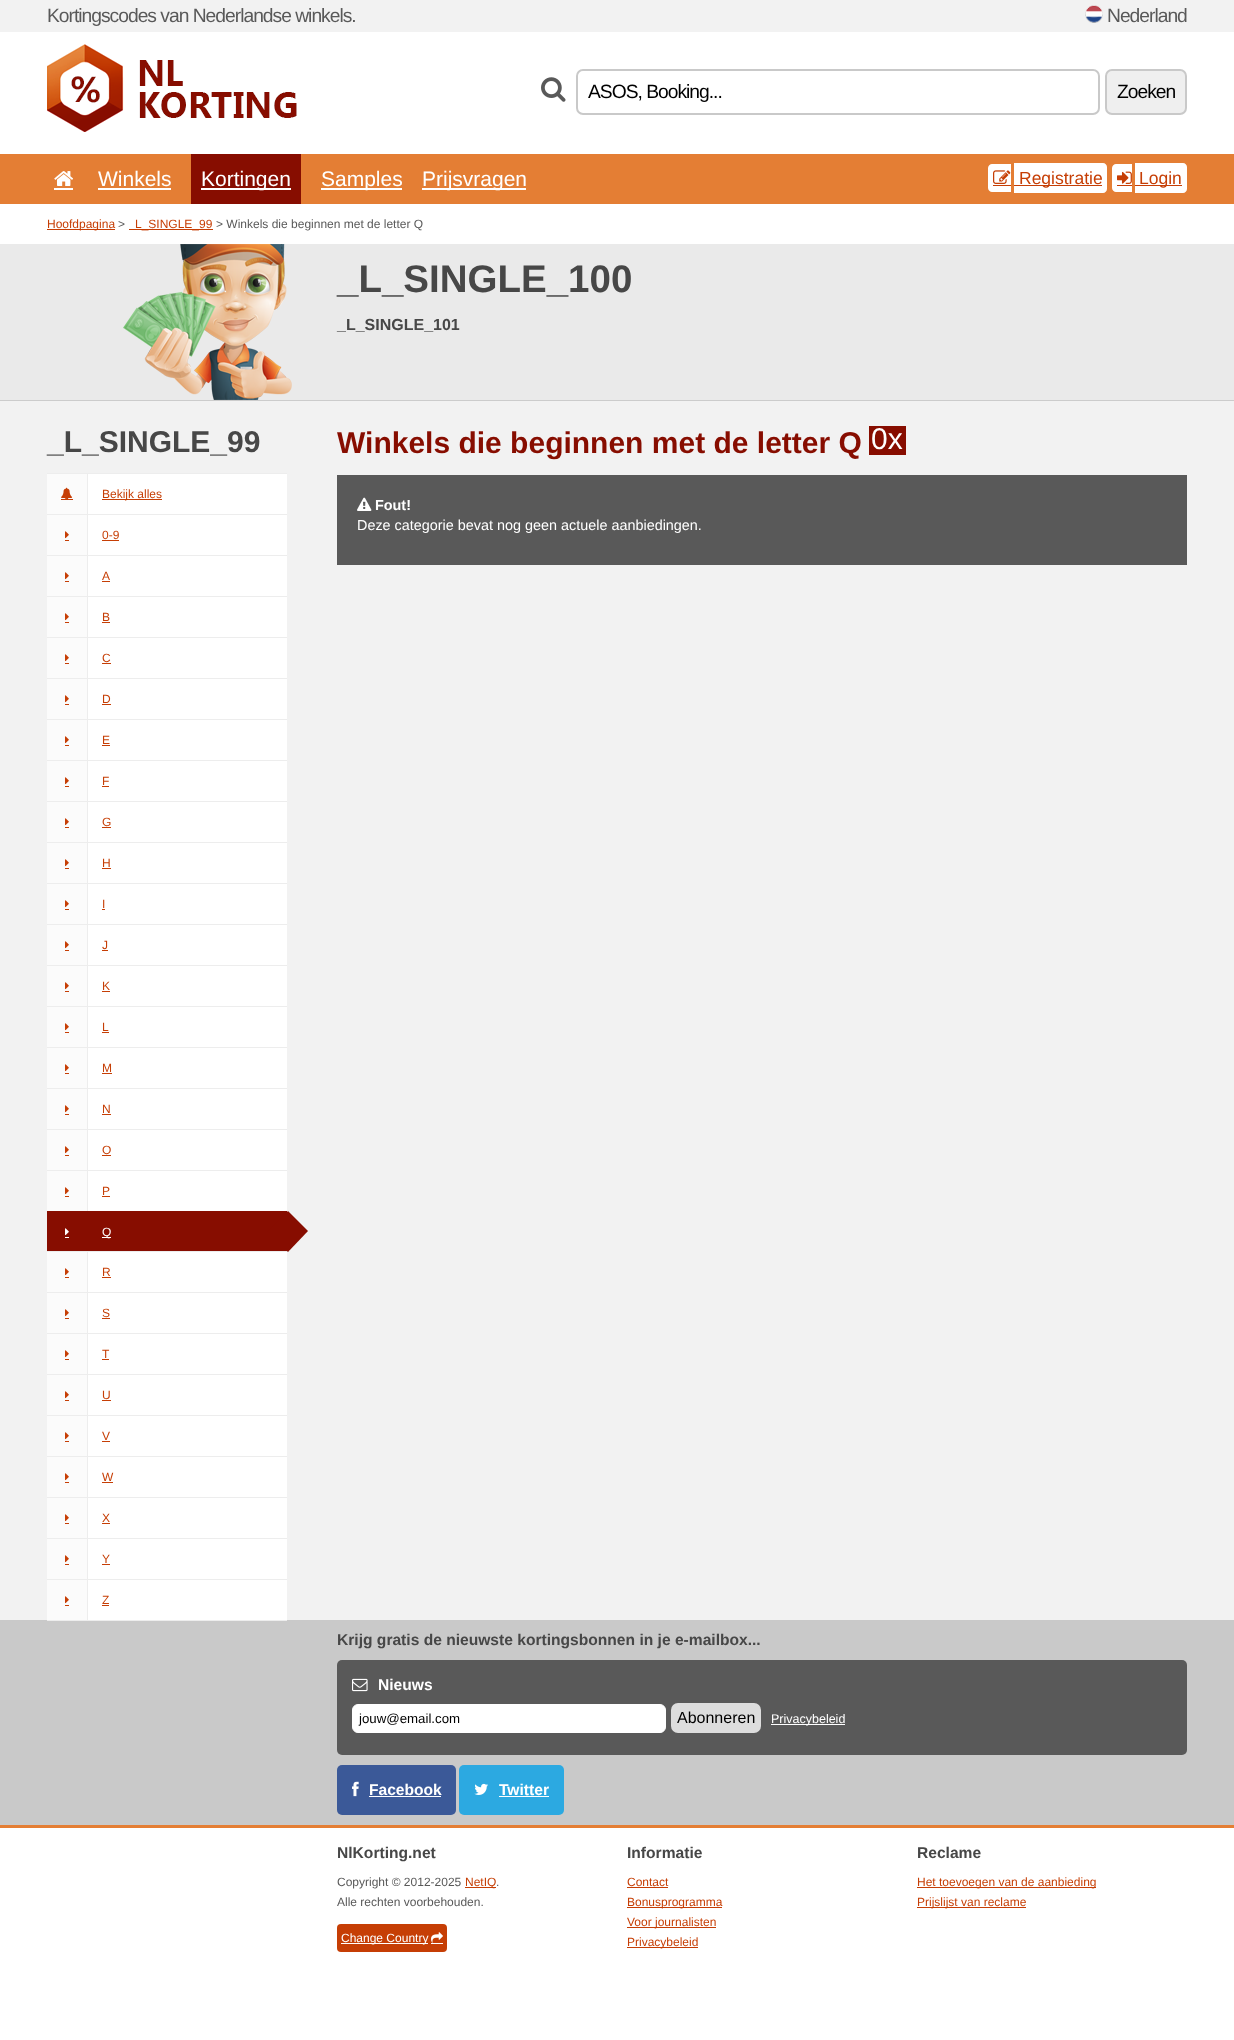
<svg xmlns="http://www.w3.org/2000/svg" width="1234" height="2040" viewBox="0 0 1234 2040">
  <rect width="100%" height="100%" fill="rgb(255,255,255)"/>
  <rect x="0" y="0" width="1234" height="32" fill="rgb(242,242,242)"/>
  <text x="47" y="22" font-family="Liberation Sans" font-size="19.25" letter-spacing="-1" fill="rgb(89,89,89)">Kortingscodes van Nederlandse winkels.</text>
  <image x="1085" y="5" width="18" height="18" href="pic1.png"/>
  <text x="1107" y="22" font-family="Liberation Sans" font-size="19.25" letter-spacing="-1" fill="rgb(89,89,89)">Nederland</text>
  <rect x="0" y="401" width="1234" height="1219" fill="rgb(242,242,242)"/>
  <image x="47" y="44" width="250" height="88" href="pic2.png"/>
  <image x="541" y="77" width="25" height="25" href="pic3.png"/>
  <rect x="577" y="70" width="522" height="44" rx="6" fill="none" stroke="rgb(201,201,201)" stroke-width="2"/>
  <text x="588" y="98" font-family="Liberation Sans" font-size="19.25" letter-spacing="-1" fill="rgb(0,0,0)">ASOS, Booking...</text>
  <rect x="1106" y="70" width="80" height="44" rx="6" fill="rgb(239,239,239)" stroke="rgb(201,201,201)" stroke-width="2"/>
  <text x="1117" y="98" font-family="Liberation Sans" font-size="19.25" letter-spacing="-1" fill="rgb(0,0,0)">Zoeken</text>
  <rect x="0" y="154" width="1234" height="50" fill="rgb(228,126,52)"/>
  <image x="54" y="171" width="19" height="15" href="pic4.png"/>
  <rect x="54" y="188" width="19" height="2" fill="rgb(255,255,255)"/>
  <text x="98" y="186" font-family="Liberation Sans" font-size="21" fill="rgb(255,255,255)">Winkels</text>
  <rect x="98" y="188" width="73" height="2" fill="rgb(255,255,255)"/>
  <rect x="191" y="154" width="110" height="50" fill="rgb(135,13,0)"/>
  <rect x="201" y="188" width="90" height="2" fill="rgb(255,255,255)"/>
  <text x="201" y="186" font-family="Liberation Sans" font-size="21" fill="rgb(255,255,255)">Kortingen</text>
  <rect x="321" y="188" width="81" height="2" fill="rgb(255,255,255)"/>
  <text x="321" y="186" font-family="Liberation Sans" font-size="21" fill="rgb(255,255,255)">Samples</text>
  <rect x="422" y="188" width="104" height="2" fill="rgb(255,255,255)"/>
  <text x="422" y="186" font-family="Liberation Sans" font-size="21" fill="rgb(255,255,255)">Prijsvragen</text>
  <path d="M992 164H1011V192H992C990 192 988 190 988 188V168C988 166 990 164 992 164Z" fill="rgb(255,255,255)"/>
  <image x="993" y="170" width="18" height="14" href="pic5.png"/>
  <path d="M1014 163H1103C1105 163 1107 165 1107 167V189C1107 191 1105 193 1103 193H1014Z" fill="rgb(255,255,255)"/>
  <rect x="1014" y="185" width="88" height="1" fill="rgb(198,62,5)"/>
  <text x="1019" y="184" font-family="Liberation Sans" font-size="17.5" fill="rgb(198,62,5)">Registratie</text>
  <rect x="993" y="185" width="18" height="1" fill="rgb(198,62,5)"/>
  <path d="M1116 164H1132V192H1116C1114 192 1112 190 1112 188V168C1112 166 1114 164 1116 164Z" fill="rgb(255,255,255)"/>
  <image x="1117" y="171" width="15" height="13" href="pic6.png"/>
  <path d="M1135 163H1183C1185 163 1187 165 1187 167V189C1187 191 1185 193 1183 193H1135Z" fill="rgb(255,255,255)"/>
  <rect x="1135" y="185" width="47" height="1" fill="rgb(198,62,5)"/>
  <text x="1139" y="184" font-family="Liberation Sans" font-size="17.5" fill="rgb(198,62,5)">Login</text>
  <rect x="1117" y="185" width="15" height="1" fill="rgb(198,62,5)"/>
  <rect x="47" y="229" width="68" height="1" fill="rgb(198,62,5)"/>
  <text x="47" y="228" font-family="Liberation Sans" font-size="12" fill="rgb(198,62,5)">Hoofdpagina</text>
  <text x="118" y="228" font-family="Liberation Sans" font-size="12" fill="rgb(89,89,89)">&gt;</text>
  <rect x="129" y="229" width="84" height="1" fill="rgb(198,62,5)"/>
  <text x="135" y="228" font-family="Liberation Sans" font-size="12" fill="rgb(198,62,5)">L_SINGLE_99</text>
  <text x="216" y="228" font-family="Liberation Sans" font-size="12" fill="rgb(89,89,89)">&gt; Winkels die beginnen met de letter Q</text>
  <rect x="0" y="244" width="1234" height="156" fill="rgb(234,234,234)"/>
  <rect x="0" y="400" width="1234" height="1" fill="rgb(204,204,204)"/>
  <image x="123" y="244" width="169" height="156" href="pic7.png"/>
  <text x="337" y="292" font-family="Liberation Sans" font-size="38.5" font-weight="bold" fill="rgb(71,71,71)">_L_SINGLE_100</text>
  <text x="337" y="330" font-family="Liberation Sans" font-size="16" font-weight="bold" fill="rgb(71,71,71)">_L_SINGLE_101</text>
  <text x="47" y="452" font-family="Liberation Sans" font-size="30" font-weight="bold" fill="rgb(71,71,71)">_L_SINGLE_99</text>
  <rect x="88" y="474" width="199" height="40" fill="rgb(255,255,255)"/>
  <rect x="47" y="473" width="240" height="1" fill="rgb(237,237,237)"/>
  <rect x="47" y="474" width="40" height="40" fill="rgb(251,251,251)"/>
  <rect x="87" y="474" width="1" height="40" fill="rgb(237,237,237)"/>
  <image x="61" y="487" width="12" height="12" href="pic8.png"/>
  <rect x="61" y="499" width="12" height="1" fill="rgb(198,62,5)"/>
  <rect x="102" y="499" width="60" height="1" fill="rgb(198,62,5)"/>
  <text x="102" y="498" font-family="Liberation Sans" font-size="12" fill="rgb(198,62,5)">Bekijk alles</text>
  <rect x="88" y="515" width="199" height="40" fill="rgb(255,255,255)"/>
  <rect x="47" y="514" width="240" height="1" fill="rgb(237,237,237)"/>
  <rect x="47" y="515" width="40" height="40" fill="rgb(251,251,251)"/>
  <rect x="87" y="515" width="1" height="40" fill="rgb(237,237,237)"/>
  <image x="65" y="531" width="4" height="8" href="pic9.png"/>
  <rect x="65" y="540" width="4" height="1" fill="rgb(198,62,5)"/>
  <text x="102" y="539" font-family="Liberation Sans" font-size="12" fill="rgb(198,62,5)">0-9</text>
  <rect x="102" y="540" width="17" height="1" fill="rgb(198,62,5)"/>
  <rect x="88" y="556" width="199" height="40" fill="rgb(255,255,255)"/>
  <rect x="47" y="555" width="240" height="1" fill="rgb(237,237,237)"/>
  <rect x="47" y="556" width="40" height="40" fill="rgb(251,251,251)"/>
  <rect x="87" y="556" width="1" height="40" fill="rgb(237,237,237)"/>
  <image x="65" y="572" width="4" height="8" href="pic9.png"/>
  <rect x="65" y="581" width="4" height="1" fill="rgb(198,62,5)"/>
  <text x="102" y="580" font-family="Liberation Sans" font-size="12" fill="rgb(198,62,5)">A</text>
  <rect x="102" y="581" width="8" height="1" fill="rgb(198,62,5)"/>
  <rect x="88" y="597" width="199" height="40" fill="rgb(255,255,255)"/>
  <rect x="47" y="596" width="240" height="1" fill="rgb(237,237,237)"/>
  <rect x="47" y="597" width="40" height="40" fill="rgb(251,251,251)"/>
  <rect x="87" y="597" width="1" height="40" fill="rgb(237,237,237)"/>
  <image x="65" y="613" width="4" height="8" href="pic9.png"/>
  <rect x="65" y="622" width="4" height="1" fill="rgb(198,62,5)"/>
  <text x="102" y="621" font-family="Liberation Sans" font-size="12" fill="rgb(198,62,5)">B</text>
  <rect x="102" y="622" width="8" height="1" fill="rgb(198,62,5)"/>
  <rect x="88" y="638" width="199" height="40" fill="rgb(255,255,255)"/>
  <rect x="47" y="637" width="240" height="1" fill="rgb(237,237,237)"/>
  <rect x="47" y="638" width="40" height="40" fill="rgb(251,251,251)"/>
  <rect x="87" y="638" width="1" height="40" fill="rgb(237,237,237)"/>
  <image x="65" y="654" width="4" height="8" href="pic9.png"/>
  <rect x="65" y="663" width="4" height="1" fill="rgb(198,62,5)"/>
  <text x="102" y="662" font-family="Liberation Sans" font-size="12" fill="rgb(198,62,5)">C</text>
  <rect x="102" y="663" width="9" height="1" fill="rgb(198,62,5)"/>
  <rect x="88" y="679" width="199" height="40" fill="rgb(255,255,255)"/>
  <rect x="47" y="678" width="240" height="1" fill="rgb(237,237,237)"/>
  <rect x="47" y="679" width="40" height="40" fill="rgb(251,251,251)"/>
  <rect x="87" y="679" width="1" height="40" fill="rgb(237,237,237)"/>
  <image x="65" y="695" width="4" height="8" href="pic9.png"/>
  <rect x="65" y="704" width="4" height="1" fill="rgb(198,62,5)"/>
  <text x="102" y="703" font-family="Liberation Sans" font-size="12" fill="rgb(198,62,5)">D</text>
  <rect x="102" y="704" width="9" height="1" fill="rgb(198,62,5)"/>
  <rect x="88" y="720" width="199" height="40" fill="rgb(255,255,255)"/>
  <rect x="47" y="719" width="240" height="1" fill="rgb(237,237,237)"/>
  <rect x="47" y="720" width="40" height="40" fill="rgb(251,251,251)"/>
  <rect x="87" y="720" width="1" height="40" fill="rgb(237,237,237)"/>
  <image x="65" y="736" width="4" height="8" href="pic9.png"/>
  <rect x="65" y="745" width="4" height="1" fill="rgb(198,62,5)"/>
  <text x="102" y="744" font-family="Liberation Sans" font-size="12" fill="rgb(198,62,5)">E</text>
  <rect x="102" y="745" width="8" height="1" fill="rgb(198,62,5)"/>
  <rect x="88" y="761" width="199" height="40" fill="rgb(255,255,255)"/>
  <rect x="47" y="760" width="240" height="1" fill="rgb(237,237,237)"/>
  <rect x="47" y="761" width="40" height="40" fill="rgb(251,251,251)"/>
  <rect x="87" y="761" width="1" height="40" fill="rgb(237,237,237)"/>
  <image x="65" y="777" width="4" height="8" href="pic9.png"/>
  <rect x="65" y="786" width="4" height="1" fill="rgb(198,62,5)"/>
  <text x="102" y="785" font-family="Liberation Sans" font-size="12" fill="rgb(198,62,5)">F</text>
  <rect x="102" y="786" width="7" height="1" fill="rgb(198,62,5)"/>
  <rect x="88" y="802" width="199" height="40" fill="rgb(255,255,255)"/>
  <rect x="47" y="801" width="240" height="1" fill="rgb(237,237,237)"/>
  <rect x="47" y="802" width="40" height="40" fill="rgb(251,251,251)"/>
  <rect x="87" y="802" width="1" height="40" fill="rgb(237,237,237)"/>
  <image x="65" y="818" width="4" height="8" href="pic9.png"/>
  <rect x="65" y="827" width="4" height="1" fill="rgb(198,62,5)"/>
  <text x="102" y="826" font-family="Liberation Sans" font-size="12" fill="rgb(198,62,5)">G</text>
  <rect x="102" y="827" width="9" height="1" fill="rgb(198,62,5)"/>
  <rect x="88" y="843" width="199" height="40" fill="rgb(255,255,255)"/>
  <rect x="47" y="842" width="240" height="1" fill="rgb(237,237,237)"/>
  <rect x="47" y="843" width="40" height="40" fill="rgb(251,251,251)"/>
  <rect x="87" y="843" width="1" height="40" fill="rgb(237,237,237)"/>
  <image x="65" y="859" width="4" height="8" href="pic9.png"/>
  <rect x="65" y="868" width="4" height="1" fill="rgb(198,62,5)"/>
  <text x="102" y="867" font-family="Liberation Sans" font-size="12" fill="rgb(198,62,5)">H</text>
  <rect x="102" y="868" width="9" height="1" fill="rgb(198,62,5)"/>
  <rect x="88" y="884" width="199" height="40" fill="rgb(255,255,255)"/>
  <rect x="47" y="883" width="240" height="1" fill="rgb(237,237,237)"/>
  <rect x="47" y="884" width="40" height="40" fill="rgb(251,251,251)"/>
  <rect x="87" y="884" width="1" height="40" fill="rgb(237,237,237)"/>
  <image x="65" y="900" width="4" height="8" href="pic9.png"/>
  <rect x="65" y="909" width="4" height="1" fill="rgb(198,62,5)"/>
  <text x="102" y="908" font-family="Liberation Sans" font-size="12" fill="rgb(198,62,5)">I</text>
  <rect x="102" y="909" width="3" height="1" fill="rgb(198,62,5)"/>
  <rect x="88" y="925" width="199" height="40" fill="rgb(255,255,255)"/>
  <rect x="47" y="924" width="240" height="1" fill="rgb(237,237,237)"/>
  <rect x="47" y="925" width="40" height="40" fill="rgb(251,251,251)"/>
  <rect x="87" y="925" width="1" height="40" fill="rgb(237,237,237)"/>
  <image x="65" y="941" width="4" height="8" href="pic9.png"/>
  <rect x="65" y="950" width="4" height="1" fill="rgb(198,62,5)"/>
  <text x="102" y="949" font-family="Liberation Sans" font-size="12" fill="rgb(198,62,5)">J</text>
  <rect x="102" y="950" width="6" height="1" fill="rgb(198,62,5)"/>
  <rect x="88" y="966" width="199" height="40" fill="rgb(255,255,255)"/>
  <rect x="47" y="965" width="240" height="1" fill="rgb(237,237,237)"/>
  <rect x="47" y="966" width="40" height="40" fill="rgb(251,251,251)"/>
  <rect x="87" y="966" width="1" height="40" fill="rgb(237,237,237)"/>
  <image x="65" y="982" width="4" height="8" href="pic9.png"/>
  <rect x="65" y="991" width="4" height="1" fill="rgb(198,62,5)"/>
  <text x="102" y="990" font-family="Liberation Sans" font-size="12" fill="rgb(198,62,5)">K</text>
  <rect x="102" y="991" width="8" height="1" fill="rgb(198,62,5)"/>
  <rect x="88" y="1007" width="199" height="40" fill="rgb(255,255,255)"/>
  <rect x="47" y="1006" width="240" height="1" fill="rgb(237,237,237)"/>
  <rect x="47" y="1007" width="40" height="40" fill="rgb(251,251,251)"/>
  <rect x="87" y="1007" width="1" height="40" fill="rgb(237,237,237)"/>
  <image x="65" y="1023" width="4" height="8" href="pic9.png"/>
  <rect x="65" y="1032" width="4" height="1" fill="rgb(198,62,5)"/>
  <text x="102" y="1031" font-family="Liberation Sans" font-size="12" fill="rgb(198,62,5)">L</text>
  <rect x="102" y="1032" width="7" height="1" fill="rgb(198,62,5)"/>
  <rect x="88" y="1048" width="199" height="40" fill="rgb(255,255,255)"/>
  <rect x="47" y="1047" width="240" height="1" fill="rgb(237,237,237)"/>
  <rect x="47" y="1048" width="40" height="40" fill="rgb(251,251,251)"/>
  <rect x="87" y="1048" width="1" height="40" fill="rgb(237,237,237)"/>
  <image x="65" y="1064" width="4" height="8" href="pic9.png"/>
  <rect x="65" y="1073" width="4" height="1" fill="rgb(198,62,5)"/>
  <text x="102" y="1072" font-family="Liberation Sans" font-size="12" fill="rgb(198,62,5)">M</text>
  <rect x="102" y="1073" width="10" height="1" fill="rgb(198,62,5)"/>
  <rect x="88" y="1089" width="199" height="40" fill="rgb(255,255,255)"/>
  <rect x="47" y="1088" width="240" height="1" fill="rgb(237,237,237)"/>
  <rect x="47" y="1089" width="40" height="40" fill="rgb(251,251,251)"/>
  <rect x="87" y="1089" width="1" height="40" fill="rgb(237,237,237)"/>
  <image x="65" y="1105" width="4" height="8" href="pic9.png"/>
  <rect x="65" y="1114" width="4" height="1" fill="rgb(198,62,5)"/>
  <text x="102" y="1113" font-family="Liberation Sans" font-size="12" fill="rgb(198,62,5)">N</text>
  <rect x="102" y="1114" width="9" height="1" fill="rgb(198,62,5)"/>
  <rect x="88" y="1130" width="199" height="40" fill="rgb(255,255,255)"/>
  <rect x="47" y="1129" width="240" height="1" fill="rgb(237,237,237)"/>
  <rect x="47" y="1130" width="40" height="40" fill="rgb(251,251,251)"/>
  <rect x="87" y="1130" width="1" height="40" fill="rgb(237,237,237)"/>
  <image x="65" y="1146" width="4" height="8" href="pic9.png"/>
  <rect x="65" y="1155" width="4" height="1" fill="rgb(198,62,5)"/>
  <text x="102" y="1154" font-family="Liberation Sans" font-size="12" fill="rgb(198,62,5)">O</text>
  <rect x="102" y="1155" width="9" height="1" fill="rgb(198,62,5)"/>
  <rect x="88" y="1171" width="199" height="40" fill="rgb(255,255,255)"/>
  <rect x="47" y="1170" width="240" height="1" fill="rgb(237,237,237)"/>
  <rect x="47" y="1171" width="40" height="40" fill="rgb(251,251,251)"/>
  <rect x="87" y="1171" width="1" height="40" fill="rgb(237,237,237)"/>
  <image x="65" y="1187" width="4" height="8" href="pic9.png"/>
  <rect x="65" y="1196" width="4" height="1" fill="rgb(198,62,5)"/>
  <text x="102" y="1195" font-family="Liberation Sans" font-size="12" fill="rgb(198,62,5)">P</text>
  <rect x="102" y="1196" width="8" height="1" fill="rgb(198,62,5)"/>
  <rect x="47" y="1211" width="240" height="40" fill="rgb(135,13,0)"/>
  <image x="65" y="1228" width="4" height="8" href="pic10.png"/>
  <rect x="65" y="1237" width="4" height="1" fill="rgb(255,255,255)"/>
  <rect x="102" y="1237" width="9" height="1" fill="rgb(255,255,255)"/>
  <text x="102" y="1236" font-family="Liberation Sans" font-size="12" fill="rgb(255,255,255)">Q</text>
  <path d="M288 1211L308 1231L288 1252L267 1232Z" fill="rgb(135,13,0)"/>
  <rect x="88" y="1252" width="199" height="40" fill="rgb(255,255,255)"/>
  <rect x="47" y="1251" width="240" height="1" fill="rgb(237,237,237)"/>
  <rect x="47" y="1252" width="40" height="40" fill="rgb(251,251,251)"/>
  <rect x="87" y="1252" width="1" height="40" fill="rgb(237,237,237)"/>
  <image x="65" y="1268" width="4" height="8" href="pic9.png"/>
  <rect x="65" y="1277" width="4" height="1" fill="rgb(198,62,5)"/>
  <text x="102" y="1276" font-family="Liberation Sans" font-size="12" fill="rgb(198,62,5)">R</text>
  <rect x="102" y="1277" width="9" height="1" fill="rgb(198,62,5)"/>
  <rect x="88" y="1293" width="199" height="40" fill="rgb(255,255,255)"/>
  <rect x="47" y="1292" width="240" height="1" fill="rgb(237,237,237)"/>
  <rect x="47" y="1293" width="40" height="40" fill="rgb(251,251,251)"/>
  <rect x="87" y="1293" width="1" height="40" fill="rgb(237,237,237)"/>
  <image x="65" y="1309" width="4" height="8" href="pic9.png"/>
  <rect x="65" y="1318" width="4" height="1" fill="rgb(198,62,5)"/>
  <text x="102" y="1317" font-family="Liberation Sans" font-size="12" fill="rgb(198,62,5)">S</text>
  <rect x="102" y="1318" width="8" height="1" fill="rgb(198,62,5)"/>
  <rect x="88" y="1334" width="199" height="40" fill="rgb(255,255,255)"/>
  <rect x="47" y="1333" width="240" height="1" fill="rgb(237,237,237)"/>
  <rect x="47" y="1334" width="40" height="40" fill="rgb(251,251,251)"/>
  <rect x="87" y="1334" width="1" height="40" fill="rgb(237,237,237)"/>
  <image x="65" y="1350" width="4" height="8" href="pic9.png"/>
  <rect x="65" y="1359" width="4" height="1" fill="rgb(198,62,5)"/>
  <text x="102" y="1358" font-family="Liberation Sans" font-size="12" fill="rgb(198,62,5)">T</text>
  <rect x="102" y="1359" width="7" height="1" fill="rgb(198,62,5)"/>
  <rect x="88" y="1375" width="199" height="40" fill="rgb(255,255,255)"/>
  <rect x="47" y="1374" width="240" height="1" fill="rgb(237,237,237)"/>
  <rect x="47" y="1375" width="40" height="40" fill="rgb(251,251,251)"/>
  <rect x="87" y="1375" width="1" height="40" fill="rgb(237,237,237)"/>
  <image x="65" y="1391" width="4" height="8" href="pic9.png"/>
  <rect x="65" y="1400" width="4" height="1" fill="rgb(198,62,5)"/>
  <text x="102" y="1399" font-family="Liberation Sans" font-size="12" fill="rgb(198,62,5)">U</text>
  <rect x="102" y="1400" width="9" height="1" fill="rgb(198,62,5)"/>
  <rect x="88" y="1416" width="199" height="40" fill="rgb(255,255,255)"/>
  <rect x="47" y="1415" width="240" height="1" fill="rgb(237,237,237)"/>
  <rect x="47" y="1416" width="40" height="40" fill="rgb(251,251,251)"/>
  <rect x="87" y="1416" width="1" height="40" fill="rgb(237,237,237)"/>
  <image x="65" y="1432" width="4" height="8" href="pic9.png"/>
  <rect x="65" y="1441" width="4" height="1" fill="rgb(198,62,5)"/>
  <text x="102" y="1440" font-family="Liberation Sans" font-size="12" fill="rgb(198,62,5)">V</text>
  <rect x="102" y="1441" width="8" height="1" fill="rgb(198,62,5)"/>
  <rect x="88" y="1457" width="199" height="40" fill="rgb(255,255,255)"/>
  <rect x="47" y="1456" width="240" height="1" fill="rgb(237,237,237)"/>
  <rect x="47" y="1457" width="40" height="40" fill="rgb(251,251,251)"/>
  <rect x="87" y="1457" width="1" height="40" fill="rgb(237,237,237)"/>
  <image x="65" y="1473" width="4" height="8" href="pic9.png"/>
  <rect x="65" y="1482" width="4" height="1" fill="rgb(198,62,5)"/>
  <text x="102" y="1481" font-family="Liberation Sans" font-size="12" fill="rgb(198,62,5)">W</text>
  <rect x="102" y="1482" width="11" height="1" fill="rgb(198,62,5)"/>
  <rect x="88" y="1498" width="199" height="40" fill="rgb(255,255,255)"/>
  <rect x="47" y="1497" width="240" height="1" fill="rgb(237,237,237)"/>
  <rect x="47" y="1498" width="40" height="40" fill="rgb(251,251,251)"/>
  <rect x="87" y="1498" width="1" height="40" fill="rgb(237,237,237)"/>
  <image x="65" y="1514" width="4" height="8" href="pic9.png"/>
  <rect x="65" y="1523" width="4" height="1" fill="rgb(198,62,5)"/>
  <text x="102" y="1522" font-family="Liberation Sans" font-size="12" fill="rgb(198,62,5)">X</text>
  <rect x="102" y="1523" width="8" height="1" fill="rgb(198,62,5)"/>
  <rect x="88" y="1539" width="199" height="40" fill="rgb(255,255,255)"/>
  <rect x="47" y="1538" width="240" height="1" fill="rgb(237,237,237)"/>
  <rect x="47" y="1539" width="40" height="40" fill="rgb(251,251,251)"/>
  <rect x="87" y="1539" width="1" height="40" fill="rgb(237,237,237)"/>
  <image x="65" y="1555" width="4" height="8" href="pic9.png"/>
  <rect x="65" y="1564" width="4" height="1" fill="rgb(198,62,5)"/>
  <text x="102" y="1563" font-family="Liberation Sans" font-size="12" fill="rgb(198,62,5)">Y</text>
  <rect x="102" y="1564" width="8" height="1" fill="rgb(198,62,5)"/>
  <rect x="88" y="1580" width="199" height="40" fill="rgb(255,255,255)"/>
  <rect x="47" y="1579" width="240" height="1" fill="rgb(237,237,237)"/>
  <rect x="0" y="1620" width="1234" height="205" fill="rgb(201,201,201)"/>
  <rect x="47" y="1620" width="240" height="1" fill="rgb(237,237,237)"/>
  <rect x="47" y="1580" width="40" height="40" fill="rgb(251,251,251)"/>
  <rect x="87" y="1580" width="1" height="40" fill="rgb(237,237,237)"/>
  <image x="65" y="1596" width="4" height="8" href="pic9.png"/>
  <rect x="65" y="1605" width="4" height="1" fill="rgb(198,62,5)"/>
  <text x="102" y="1604" font-family="Liberation Sans" font-size="12" fill="rgb(198,62,5)">Z</text>
  <rect x="102" y="1605" width="7" height="1" fill="rgb(198,62,5)"/>
  <text x="337" y="453" font-family="Liberation Sans" font-size="30" font-weight="bold" fill="rgb(135,13,0)">Winkels die beginnen met de letter Q</text>
  <rect x="869" y="426" width="37" height="29" fill="rgb(135,13,0)"/>
  <text x="871" y="449" font-family="Liberation Sans" font-size="30" fill="rgb(255,255,255)">0x</text>
  <rect x="337" y="475" width="850" height="90" fill="rgb(89,89,89)"/>
  <image x="357" y="497" width="15" height="14" href="pic11.png"/>
  <text x="375" y="510" font-family="Liberation Sans" font-size="14.4" font-weight="bold" fill="rgb(255,255,255)">Fout!</text>
  <text x="357" y="530" font-family="Liberation Sans" font-size="14.4" fill="rgb(255,255,255)">Deze categorie bevat nog geen actuele aanbiedingen.</text>
  <text x="337" y="1645" font-family="Liberation Sans" font-size="15.6" font-weight="bold" fill="rgb(71,71,71)">Krijg gratis de nieuwste kortingsbonnen in je e-mailbox...</text>
  <rect x="337" y="1660" width="850" height="95" rx="5" fill="rgb(89,89,89)"/>
  <image x="352" y="1678" width="16" height="14" href="pic12.png"/>
  <text x="378" y="1690" font-family="Liberation Sans" font-size="15.6" font-weight="bold" fill="rgb(255,255,255)">Nieuws</text>
  <rect x="352.5" y="1704.5" width="313" height="28" rx="5.5" fill="rgb(255,255,255)" stroke="rgb(255,255,255)"/>
  <text x="359" y="1723" font-family="Liberation Sans" font-size="13.25" fill="rgb(0,0,0)">jouw@email.com</text>
  <rect x="671" y="1703" width="90" height="30" rx="7" fill="rgb(221,221,221)"/>
  <text x="677" y="1723" font-family="Liberation Sans" font-size="16" fill="rgb(0,0,0)">Abonneren</text>
  <rect x="771" y="1724" width="74" height="1" fill="rgb(255,255,255)"/>
  <text x="771" y="1723" font-family="Liberation Sans" font-size="12.5" fill="rgb(255,255,255)">Privacybeleid</text>
  <rect x="337" y="1765" width="119" height="50" rx="5" fill="rgb(59,89,152)"/>
  <image x="352" y="1781" width="7" height="16" href="pic13.png"/>
  <text x="369" y="1795" font-family="Liberation Sans" font-size="15.6" font-weight="bold" fill="rgb(255,255,255)">Facebook</text>
  <rect x="369" y="1796" width="72" height="1" fill="rgb(255,255,255)"/>
  <rect x="459" y="1765" width="105" height="50" rx="5" fill="rgb(44,169,225)"/>
  <image x="474" y="1783" width="14" height="12" href="pic14.png"/>
  <text x="499" y="1795" font-family="Liberation Sans" font-size="15.6" font-weight="bold" fill="rgb(255,255,255)">Twitter</text>
  <rect x="499" y="1796" width="50" height="1" fill="rgb(255,255,255)"/>
  <rect x="0" y="1825" width="1234" height="3" fill="rgb(228,126,52)"/>
  <text x="337" y="1858" font-family="Liberation Sans" font-size="15.6" font-weight="bold" fill="rgb(71,71,71)">NlKorting.net</text>
  <text x="337" y="1886" font-family="Liberation Sans" font-size="12" fill="rgb(89,89,89)">Copyright © 2012-2025</text>
  <rect x="465" y="1887" width="31" height="1" fill="rgb(198,62,5)"/>
  <text x="465" y="1886" font-family="Liberation Sans" font-size="12" fill="rgb(198,62,5)">NetIQ</text>
  <g font-family="Liberation Sans" font-size="12" fill="rgb(89,89,89)">
    <text x="496" y="1886">.</text>
    <text x="337" y="1906">Alle rechten voorbehouden.</text>
  </g>
  <rect x="337" y="1924" width="110" height="28" rx="4" fill="rgb(198,62,5)"/>
  <rect x="341" y="1943" width="87" height="1" fill="rgb(255,255,255)"/>
  <text x="341" y="1942" font-family="Liberation Sans" font-size="12" fill="rgb(255,255,255)">Change Country</text>
  <image x="431" y="1932" width="12" height="11" href="pic15.png"/>
  <rect x="431" y="1943" width="12" height="1" fill="rgb(255,255,255)"/>
  <text x="627" y="1858" font-family="Liberation Sans" font-size="15.6" font-weight="bold" fill="rgb(71,71,71)">Informatie</text>
  <text x="627" y="1886" font-family="Liberation Sans" font-size="12" fill="rgb(198,62,5)">Contact</text>
  <rect x="627" y="1887" width="41" height="1" fill="rgb(198,62,5)"/>
  <rect x="627" y="1907" width="95" height="1" fill="rgb(198,62,5)"/>
  <text x="627" y="1906" font-family="Liberation Sans" font-size="12" fill="rgb(198,62,5)">Bonusprogramma</text>
  <rect x="627" y="1927" width="89" height="1" fill="rgb(198,62,5)"/>
  <text x="627" y="1926" font-family="Liberation Sans" font-size="12" fill="rgb(198,62,5)">Voor journalisten</text>
  <rect x="627" y="1947" width="71" height="1" fill="rgb(198,62,5)"/>
  <text x="627" y="1946" font-family="Liberation Sans" font-size="12" fill="rgb(198,62,5)">Privacybeleid</text>
  <text x="917" y="1858" font-family="Liberation Sans" font-size="15.6" font-weight="bold" fill="rgb(71,71,71)">Reclame</text>
  <rect x="917" y="1887" width="179" height="1" fill="rgb(198,62,5)"/>
  <text x="917" y="1886" font-family="Liberation Sans" font-size="12" fill="rgb(198,62,5)">Het toevoegen van de aanbieding</text>
  <rect x="917" y="1907" width="109" height="1" fill="rgb(198,62,5)"/>
  <text x="917" y="1906" font-family="Liberation Sans" font-size="12" fill="rgb(198,62,5)">Prijslijst van reclame</text>
</svg>
